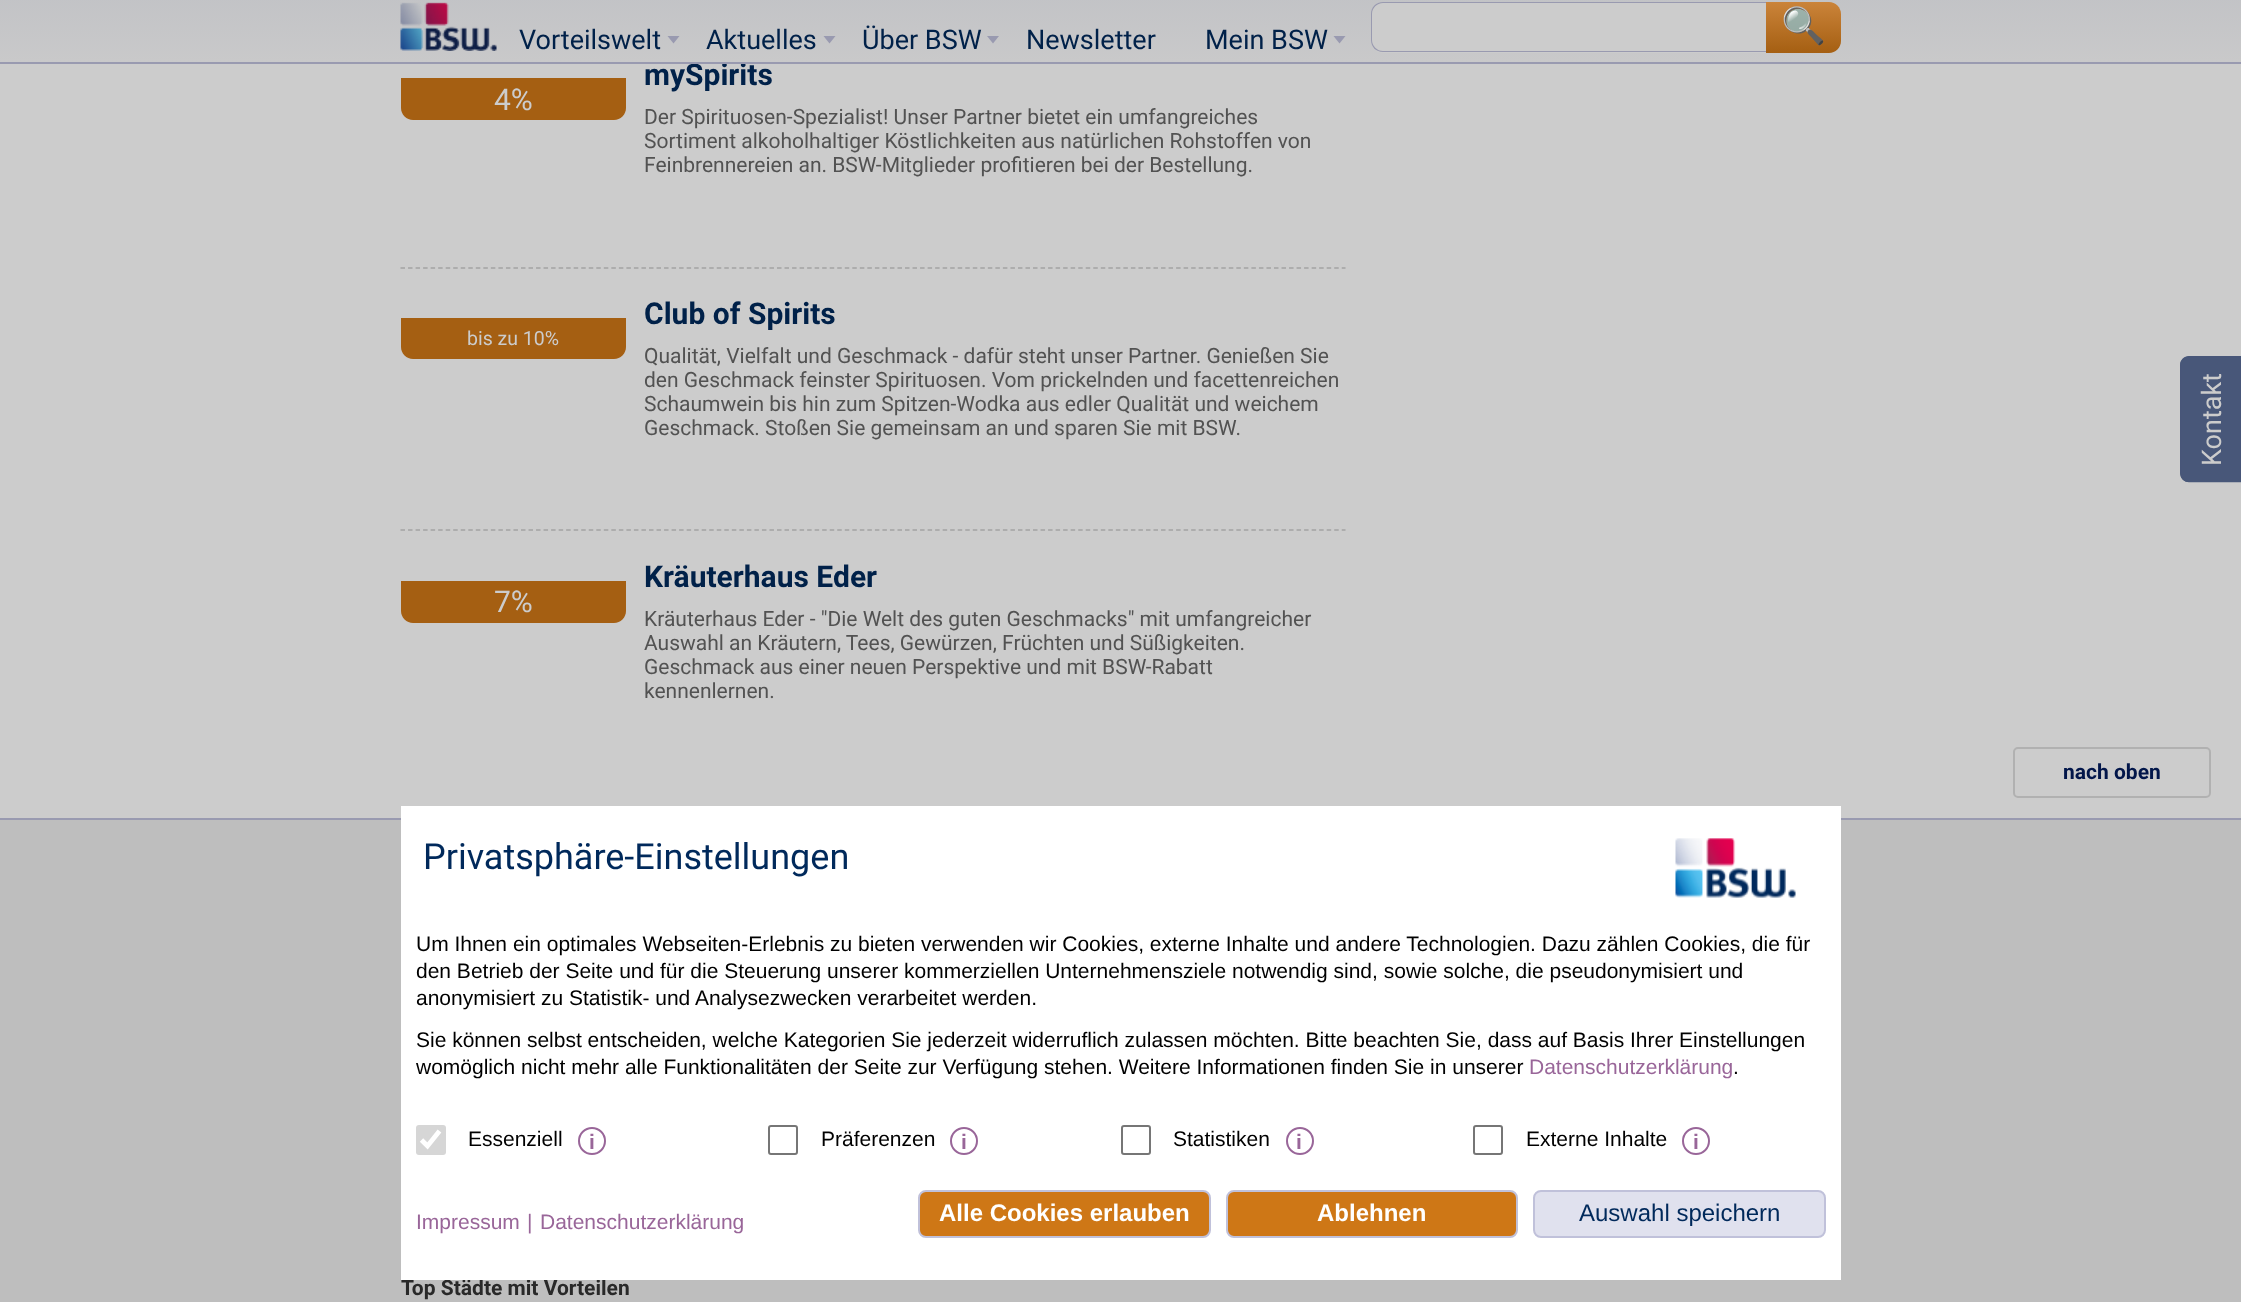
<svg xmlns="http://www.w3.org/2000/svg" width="2241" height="1302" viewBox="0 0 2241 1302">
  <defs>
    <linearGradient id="g1" gradientUnits="userSpaceOnUse" x1="1121" y1="-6" x2="1121" y2="62"><stop offset="0" stop-color="rgb(194,195,198)"/><stop offset="1" stop-color="rgb(201,201,202)"/></linearGradient>
    <linearGradient id="g2" gradientUnits="userSpaceOnUse" x1="1803" y1="1.5" x2="1803" y2="53"><stop offset="0" stop-color="rgb(203,132,58)"/><stop offset="1" stop-color="rgb(165,95,18)"/></linearGradient>
  </defs>
  <rect width="100%" height="100%" fill="rgb(190,190,190)"/>
  <rect x="0" y="64" width="2241" height="754" fill="rgb(204,204,204)"/>
  <rect x="0" y="818" width="2241" height="2" fill="rgb(153,154,176)"/>
  <rect x="0" y="0" width="2241" height="62" fill="url(#g1)"/>
  <text x="644" y="85" font-family="Roboto" font-size="30" font-weight="bold" fill="rgb(0,33,73)">mySpirits</text>
  <rect x="0" y="62" width="2241" height="2" fill="rgb(153,154,176)"/>
  <image x="400" y="2" width="97" height="49" href="pic1.png"/>
  <text x="519" y="49" font-family="Roboto" font-size="27" fill="rgb(0,33,73)">Vorteilswelt</text>
  <path d="M667.5 36H679.5L673.5 43.5Z" fill="rgb(153,154,176)"/>
  <text x="706" y="49" font-family="Roboto" font-size="27" fill="rgb(0,33,73)">Aktuelles</text>
  <path d="M823.5 36H835.5L829.5 43.5Z" fill="rgb(153,154,176)"/>
  <text x="862" y="49" font-family="Roboto" font-size="27" fill="rgb(0,33,73)">Über BSW</text>
  <path d="M987 36H999L993 43.5Z" fill="rgb(153,154,176)"/>
  <g font-family="Roboto" font-size="27" fill="rgb(0,33,73)">
    <text x="1026" y="49">Newsletter</text>
    <text x="1205" y="49">Mein BSW</text>
  </g>
  <path d="M1333.5 36H1345.5L1339.5 43.5Z" fill="rgb(153,154,176)"/>
  <path d="M1383 2H1766V53H1383C1376.5 53 1371 47.5 1371 41V14C1371 7.5 1376.5 2 1383 2Z" fill="rgb(204,204,204)"/>
  <path d="M1383 2H1766V52H1383C1376 52 1371 47 1371 40V14C1371 7 1376 2 1383 2ZM1383 3H1766V51H1383C1377 51 1372 46 1372 40V14C1372 8 1377 3 1383 3Z" fill="rgb(153,154,176)" fill-rule="evenodd"/>
  <path d="M1766 2H1829C1835.5 2 1841 7.5 1841 14V41C1841 47.5 1835.5 53 1829 53H1766Z" fill="url(#g2)"/>
  <text x="1781" y="38" font-family="Noto Color Emoji" font-size="36" fill="rgb(204,204,204)">🔍</text>
  <path d="M401 78H626V108C626 114.5 620.5 120 614 120H413C406.5 120 401 114.5 401 108Z" fill="rgb(165,95,18)"/>
  <text x="494" y="110" font-family="Roboto" font-size="30" fill="rgb(204,204,204)">4%</text>
  <g font-family="Roboto" font-size="21" fill="rgb(82,82,82)">
    <text>
      <tspan x="644" y="124">Der Spirituosen-Spezialist! Unser Partner bietet ein umfangreiches</tspan>
      <tspan x="644" y="148">Sortiment alkoholhaltiger Köstlichkeiten aus natürlichen Rohstoffen von</tspan>
      <tspan x="644" y="172">Feinbrennereien an. BSW-Mitglieder profitieren bei der Bestellung.</tspan>
    </text>
  </g>
  <path d="M400.5 268H1345.5" fill="none" stroke="rgb(163,163,163)" stroke-width="1.5" stroke-dasharray="4.5 3.03"/>
  <path d="M401 318H626V347C626 353.5 620.5 359 614 359H413C406.5 359 401 353.5 401 347Z" fill="rgb(165,95,18)"/>
  <text x="467" y="345" font-family="Roboto" font-size="19.5" fill="rgb(204,204,204)">bis zu 10%</text>
  <text x="644" y="324" font-family="Roboto" font-size="30" font-weight="bold" fill="rgb(0,33,73)">Club of Spirits</text>
  <g font-family="Roboto" font-size="21" fill="rgb(82,82,82)">
    <text>
      <tspan x="644" y="363">Qualität, Vielfalt und Geschmack - dafür steht unser Partner. Genießen Sie</tspan>
      <tspan x="644" y="387">den Geschmack feinster Spirituosen. Vom prickelnden und facettenreichen</tspan>
      <tspan x="644" y="411">Schaumwein bis hin zum Spitzen-Wodka aus edler Qualität und weichem</tspan>
      <tspan x="644" y="435">Geschmack. Stoßen Sie gemeinsam an und sparen Sie mit BSW.</tspan>
    </text>
  </g>
  <path d="M400.5 530H1345.5" fill="none" stroke="rgb(163,163,163)" stroke-width="1.5" stroke-dasharray="4.5 3.03"/>
  <path d="M401 581H626V611C626 617.5 620.5 623 614 623H413C406.5 623 401 617.5 401 611Z" fill="rgb(165,95,18)"/>
  <text x="494" y="612" font-family="Roboto" font-size="30" fill="rgb(204,204,204)">7%</text>
  <text x="644" y="587" font-family="Roboto" font-size="30" font-weight="bold" fill="rgb(0,33,73)">Kräuterhaus Eder</text>
  <g font-family="Roboto" font-size="21" fill="rgb(82,82,82)">
    <text>
      <tspan x="644" y="626">Kräuterhaus Eder - "Die Welt des guten Geschmacks" mit umfangreicher</tspan>
      <tspan x="644" y="650">Auswahl an Kräutern, Tees, Gewürzen, Früchten und Süßigkeiten.</tspan>
      <tspan x="644" y="674">Geschmack aus einer neuen Perspektive und mit BSW-Rabatt</tspan>
      <tspan x="644" y="698">kennenlernen.</tspan>
    </text>
  </g>
  <path d="M2180 473V365C2180 360 2184 356 2189 356H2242V482H2189C2184 482 2180 478 2180 473Z" fill="rgb(72,87,121)"/>
  <path d="M2181 473V365C2181 360.5 2184.5 357 2189 357H2241V481.5H2189C2184.5 481.5 2181 478 2181 473Z" fill="none" stroke="rgb(72,87,121)" stroke-width="1.5"/>
  <text x="2221" y="466" transform="rotate(-90 2221 466)" font-family="Roboto" font-size="27" fill="rgb(204,204,204)">Kontakt</text>
  <text x="401" y="1295" font-family="Roboto" font-size="21" font-weight="bold" fill="rgb(41,41,41)">Top Städte mit Vorteilen</text>
  <rect x="2014" y="748" width="196" height="49" rx="4" fill="none" stroke="rgb(177,177,177)" stroke-width="2"/>
  <text x="2063" y="779" font-family="Roboto" font-size="21" font-weight="bold" fill="rgb(2,22,74)">nach oben</text>
  <rect x="401" y="806" width="1440" height="474" fill="rgb(255,255,255)"/>
  <text x="423" y="869" font-family="Roboto" font-size="36" fill="rgb(0,41,91)">Privatsphäre-Einstellungen</text>
  <image x="1675" y="838" width="121" height="60" href="pic2.png"/>
  <g font-family="Liberation Sans" font-size="21" fill="rgb(0,0,0)">
    <text>
      <tspan x="416" y="951">Um Ihnen ein optimales Webseiten-Erlebnis zu bieten verwenden wir Cookies, externe Inhalte und andere Technologien. Dazu zählen Cookies, die für</tspan>
      <tspan x="416" y="978">den Betrieb der Seite und für die Steuerung unserer kommerziellen Unternehmensziele notwendig sind, sowie solche, die pseudonymisiert und</tspan>
      <tspan x="416" y="1005">anonymisiert zu Statistik- und Analysezwecken verarbeitet werden.</tspan>
    </text>
    <text>
      <tspan x="416" y="1047">Sie können selbst entscheiden, welche Kategorien Sie jederzeit widerruflich zulassen möchten. Bitte beachten Sie, dass auf Basis Ihrer Einstellungen</tspan>
      <tspan x="416" y="1074">womöglich nicht mehr alle Funktionalitäten der Seite zur Verfügung stehen. Weitere Informationen finden Sie in unserer</tspan>
    </text>
  </g>
  <text x="1529" y="1074" font-family="Liberation Sans" font-size="21" fill="rgb(153,102,153)">Datenschutzerklärung</text>
  <text x="1733" y="1074" font-family="Liberation Sans" font-size="21" fill="rgb(0,0,0)">.</text>
  <rect x="416" y="1125" width="30" height="30" rx="3" fill="rgb(214,214,214)"/>
  <path d="M421.5 1140L427.5 1146L439.5 1131" fill="none" stroke="rgb(255,255,255)" stroke-width="4.8"/>
  <text x="468" y="1146" font-family="Liberation Sans" font-size="21" fill="rgb(0,0,0)">Essenziell</text>
  <circle cx="592" cy="1141" r="13" fill="none" stroke="rgb(153,102,153)" stroke-width="2"/>
  <text x="589" y="1149" font-family="Liberation Sans" font-size="21" font-weight="bold" fill="rgb(153,102,153)">i</text>
  <rect x="769" y="1126" width="28" height="28" rx="2" fill="none" stroke="rgb(118,118,118)" stroke-width="2"/>
  <text x="821" y="1146" font-family="Liberation Sans" font-size="21" fill="rgb(0,0,0)">Präferenzen</text>
  <circle cx="964" cy="1141" r="13" fill="none" stroke="rgb(153,102,153)" stroke-width="2"/>
  <text x="961" y="1149" font-family="Liberation Sans" font-size="21" font-weight="bold" fill="rgb(153,102,153)">i</text>
  <rect x="1122" y="1126" width="28" height="28" rx="2" fill="none" stroke="rgb(118,118,118)" stroke-width="2"/>
  <text x="1173" y="1146" font-family="Liberation Sans" font-size="21" fill="rgb(0,0,0)">Statistiken</text>
  <circle cx="1300" cy="1141" r="13" fill="none" stroke="rgb(153,102,153)" stroke-width="2"/>
  <text x="1296" y="1149" font-family="Liberation Sans" font-size="21" font-weight="bold" fill="rgb(153,102,153)">i</text>
  <rect x="1474" y="1126" width="28" height="28" rx="2" fill="none" stroke="rgb(118,118,118)" stroke-width="2"/>
  <text x="1526" y="1146" font-family="Liberation Sans" font-size="21" fill="rgb(0,0,0)">Externe Inhalte</text>
  <circle cx="1696" cy="1141" r="13" fill="none" stroke="rgb(153,102,153)" stroke-width="2"/>
  <text x="1693" y="1149" font-family="Liberation Sans" font-size="21" font-weight="bold" fill="rgb(153,102,153)">i</text>
  <g font-family="Liberation Sans" font-size="21" fill="rgb(153,102,153)">
    <text x="416" y="1229">Impressum</text>
    <text x="527" y="1229">|</text>
    <text x="540" y="1229">Datenschutzerklärung</text>
  </g>
  <rect x="919" y="1191" width="291" height="46" rx="7" fill="rgb(206,119,22)" stroke="rgb(192,193,218)" stroke-width="2"/>
  <text x="939" y="1221" font-family="Liberation Sans" font-size="24" font-weight="bold" fill="rgb(255,255,255)">Alle Cookies erlauben</text>
  <rect x="1227" y="1191" width="290" height="46" rx="7" fill="rgb(206,119,22)" stroke="rgb(192,193,218)" stroke-width="2"/>
  <text x="1317" y="1221" font-family="Liberation Sans" font-size="24" font-weight="bold" fill="rgb(255,255,255)">Ablehnen</text>
  <rect x="1534" y="1191" width="291" height="46" rx="7" fill="rgb(224,225,238)" stroke="rgb(192,193,218)" stroke-width="2"/>
  <text x="1579" y="1221" font-family="Liberation Sans" font-size="24" fill="rgb(0,41,91)">Auswahl speichern</text>
</svg>
